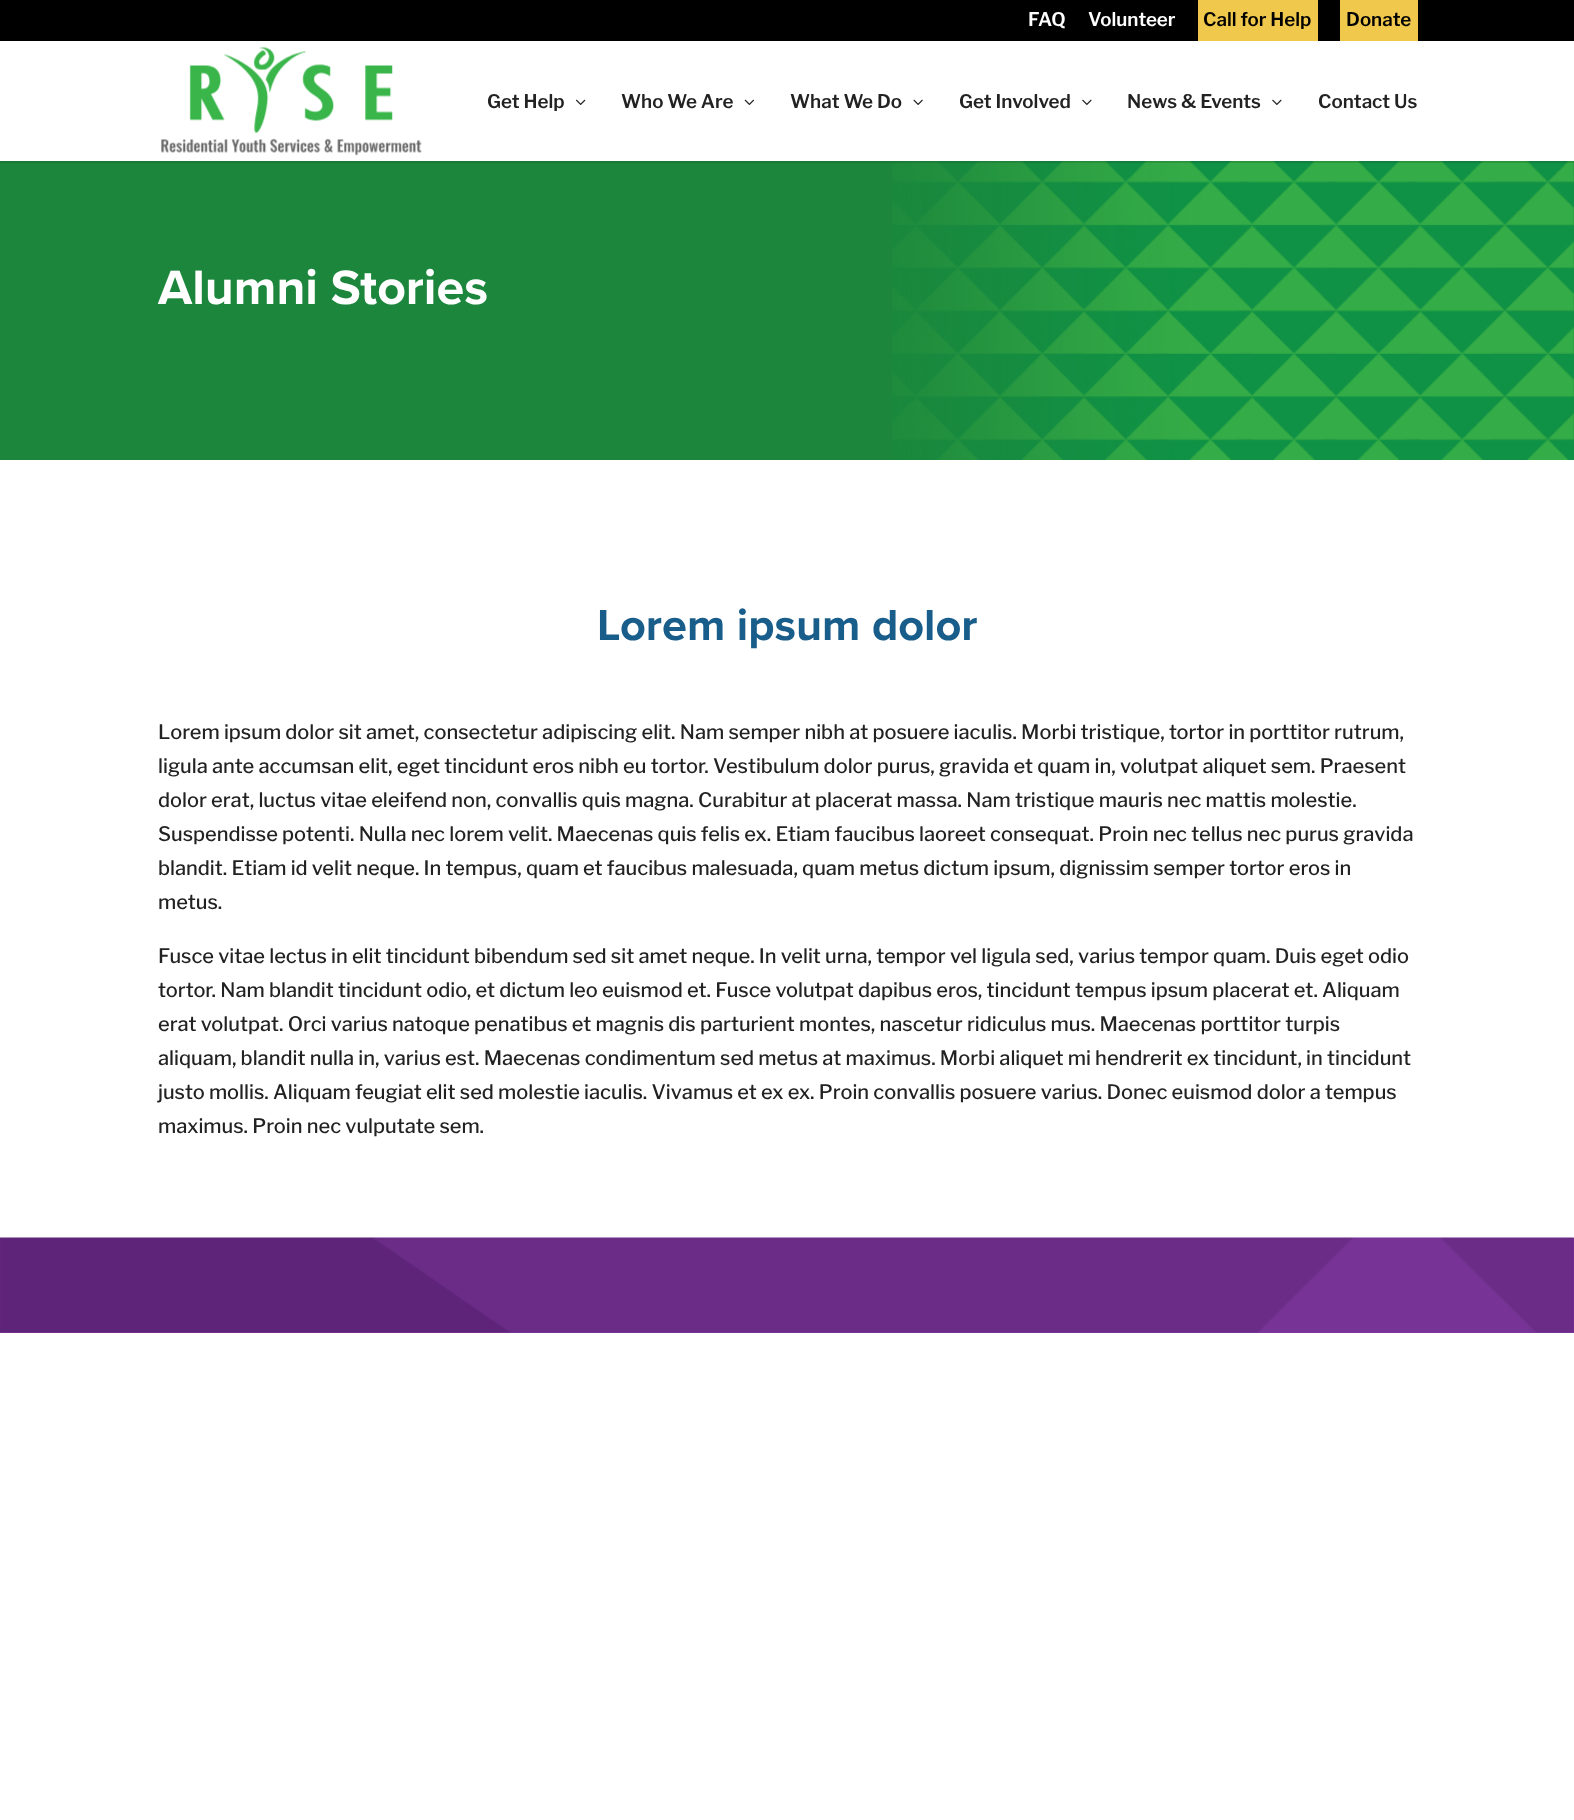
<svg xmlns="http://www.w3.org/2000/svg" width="1574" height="1820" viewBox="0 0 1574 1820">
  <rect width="100%" height="100%" fill="rgb(255,255,255)"/>
  <rect x="0" y="0" width="1574" height="41" fill="rgb(0,0,0)"/>
  <g font-family="Libre Franklin" font-size="18.75" font-weight="600" fill="rgb(255,255,255)">
    <text x="1028" y="26">FAQ</text>
    <text x="1088" y="26">Volunteer</text>
  </g>
  <rect x="1198" y="0" width="120" height="41" fill="rgb(239,200,76)"/>
  <text x="1203" y="26" font-family="Libre Franklin" font-size="18.75" font-weight="600" fill="rgb(0,0,0)">Call for Help</text>
  <rect x="1340" y="0" width="78" height="41" fill="rgb(239,200,76)"/>
  <text x="1346" y="26" font-family="Libre Franklin" font-size="18.75" font-weight="600" fill="rgb(0,0,0)">Donate</text>
  <rect x="0" y="161" width="1574" height="299" fill="rgb(28,135,60)"/>
  <image x="892" y="161" width="682" height="299" href="pic6.png"/>
  <rect x="0" y="161" width="1574" height="2" fill="rgba(0,0,0,0.1)"/>
  <image x="161" y="47" width="261" height="109" href="pic1.png"/>
  <text x="487" y="108" font-family="Libre Franklin" font-size="18.75" font-weight="600" fill="rgb(34,34,34)">Get Help</text>
  <image x="576" y="99" width="10" height="6" href="pic2.png"/>
  <text x="621" y="108" font-family="Libre Franklin" font-size="18.75" font-weight="600" fill="rgb(34,34,34)">Who We Are</text>
  <image x="744" y="99" width="10" height="6" href="pic3.png"/>
  <text x="790" y="108" font-family="Libre Franklin" font-size="18.75" font-weight="600" fill="rgb(34,34,34)">What We Do</text>
  <image x="913" y="99" width="10" height="6" href="pic4.png"/>
  <text x="959" y="108" font-family="Libre Franklin" font-size="18.75" font-weight="600" fill="rgb(34,34,34)">Get Involved</text>
  <image x="1082" y="99" width="10" height="6" href="pic5.png"/>
  <text x="1127" y="108" font-family="Libre Franklin" font-size="18.75" font-weight="600" fill="rgb(34,34,34)">News &amp; Events</text>
  <image x="1272" y="99" width="10" height="6" href="pic5.png"/>
  <text x="1318" y="108" font-family="Libre Franklin" font-size="18.75" font-weight="600" fill="rgb(34,34,34)">Contact Us</text>
  <text x="158" y="304" font-family="Proxima Nova" font-size="50" font-weight="bold" fill="rgb(255,255,255)">Alumni Stories</text>
  <text x="597" y="640" font-family="Proxima Nova" font-size="45" font-weight="bold" fill="rgb(25,93,139)">Lorem ipsum dolor</text>
  <g font-family="Libre Franklin" font-size="20" font-weight="500" fill="rgb(34,34,34)">
    <text>
      <tspan x="158" y="739">Lorem ipsum dolor sit amet, consectetur adipiscing elit. Nam semper nibh at posuere iaculis. Morbi tristique, tortor in porttitor rutrum,</tspan>
      <tspan x="158" y="773">ligula ante accumsan elit, eget tincidunt eros nibh eu tortor. Vestibulum dolor purus, gravida et quam in, volutpat aliquet sem. Praesent</tspan>
      <tspan x="158" y="807">dolor erat, luctus vitae eleifend non, convallis quis magna. Curabitur at placerat massa. Nam tristique mauris nec mattis molestie.</tspan>
      <tspan x="158" y="841">Suspendisse potenti. Nulla nec lorem velit. Maecenas quis felis ex. Etiam faucibus laoreet consequat. Proin nec tellus nec purus gravida</tspan>
      <tspan x="158" y="875">blandit. Etiam id velit neque. In tempus, quam et faucibus malesuada, quam metus dictum ipsum, dignissim semper tortor eros in</tspan>
      <tspan x="158" y="909">metus.</tspan>
    </text>
    <text>
      <tspan x="158" y="963">Fusce vitae lectus in elit tincidunt bibendum sed sit amet neque. In velit urna, tempor vel ligula sed, varius tempor quam. Duis eget odio</tspan>
      <tspan x="158" y="997">tortor. Nam blandit tincidunt odio, et dictum leo euismod et. Fusce volutpat dapibus eros, tincidunt tempus ipsum placerat et. Aliquam</tspan>
      <tspan x="158" y="1031">erat volutpat. Orci varius natoque penatibus et magnis dis parturient montes, nascetur ridiculus mus. Maecenas porttitor turpis</tspan>
      <tspan x="158" y="1065">aliquam, blandit nulla in, varius est. Maecenas condimentum sed metus at maximus. Morbi aliquet mi hendrerit ex tincidunt, in tincidunt</tspan>
      <tspan x="158" y="1099">justo mollis. Aliquam feugiat elit sed molestie iaculis. Vivamus et ex ex. Proin convallis posuere varius. Donec euismod dolor a tempus</tspan>
      <tspan x="158" y="1133">maximus. Proin nec vulputate sem.</tspan>
    </text>
  </g>
  <rect x="0" y="1238" width="1574" height="95" fill="rgb(131,59,164)"/>
  <image x="0" y="1237" width="1574" height="96" href="pic7.png"/>
</svg>
